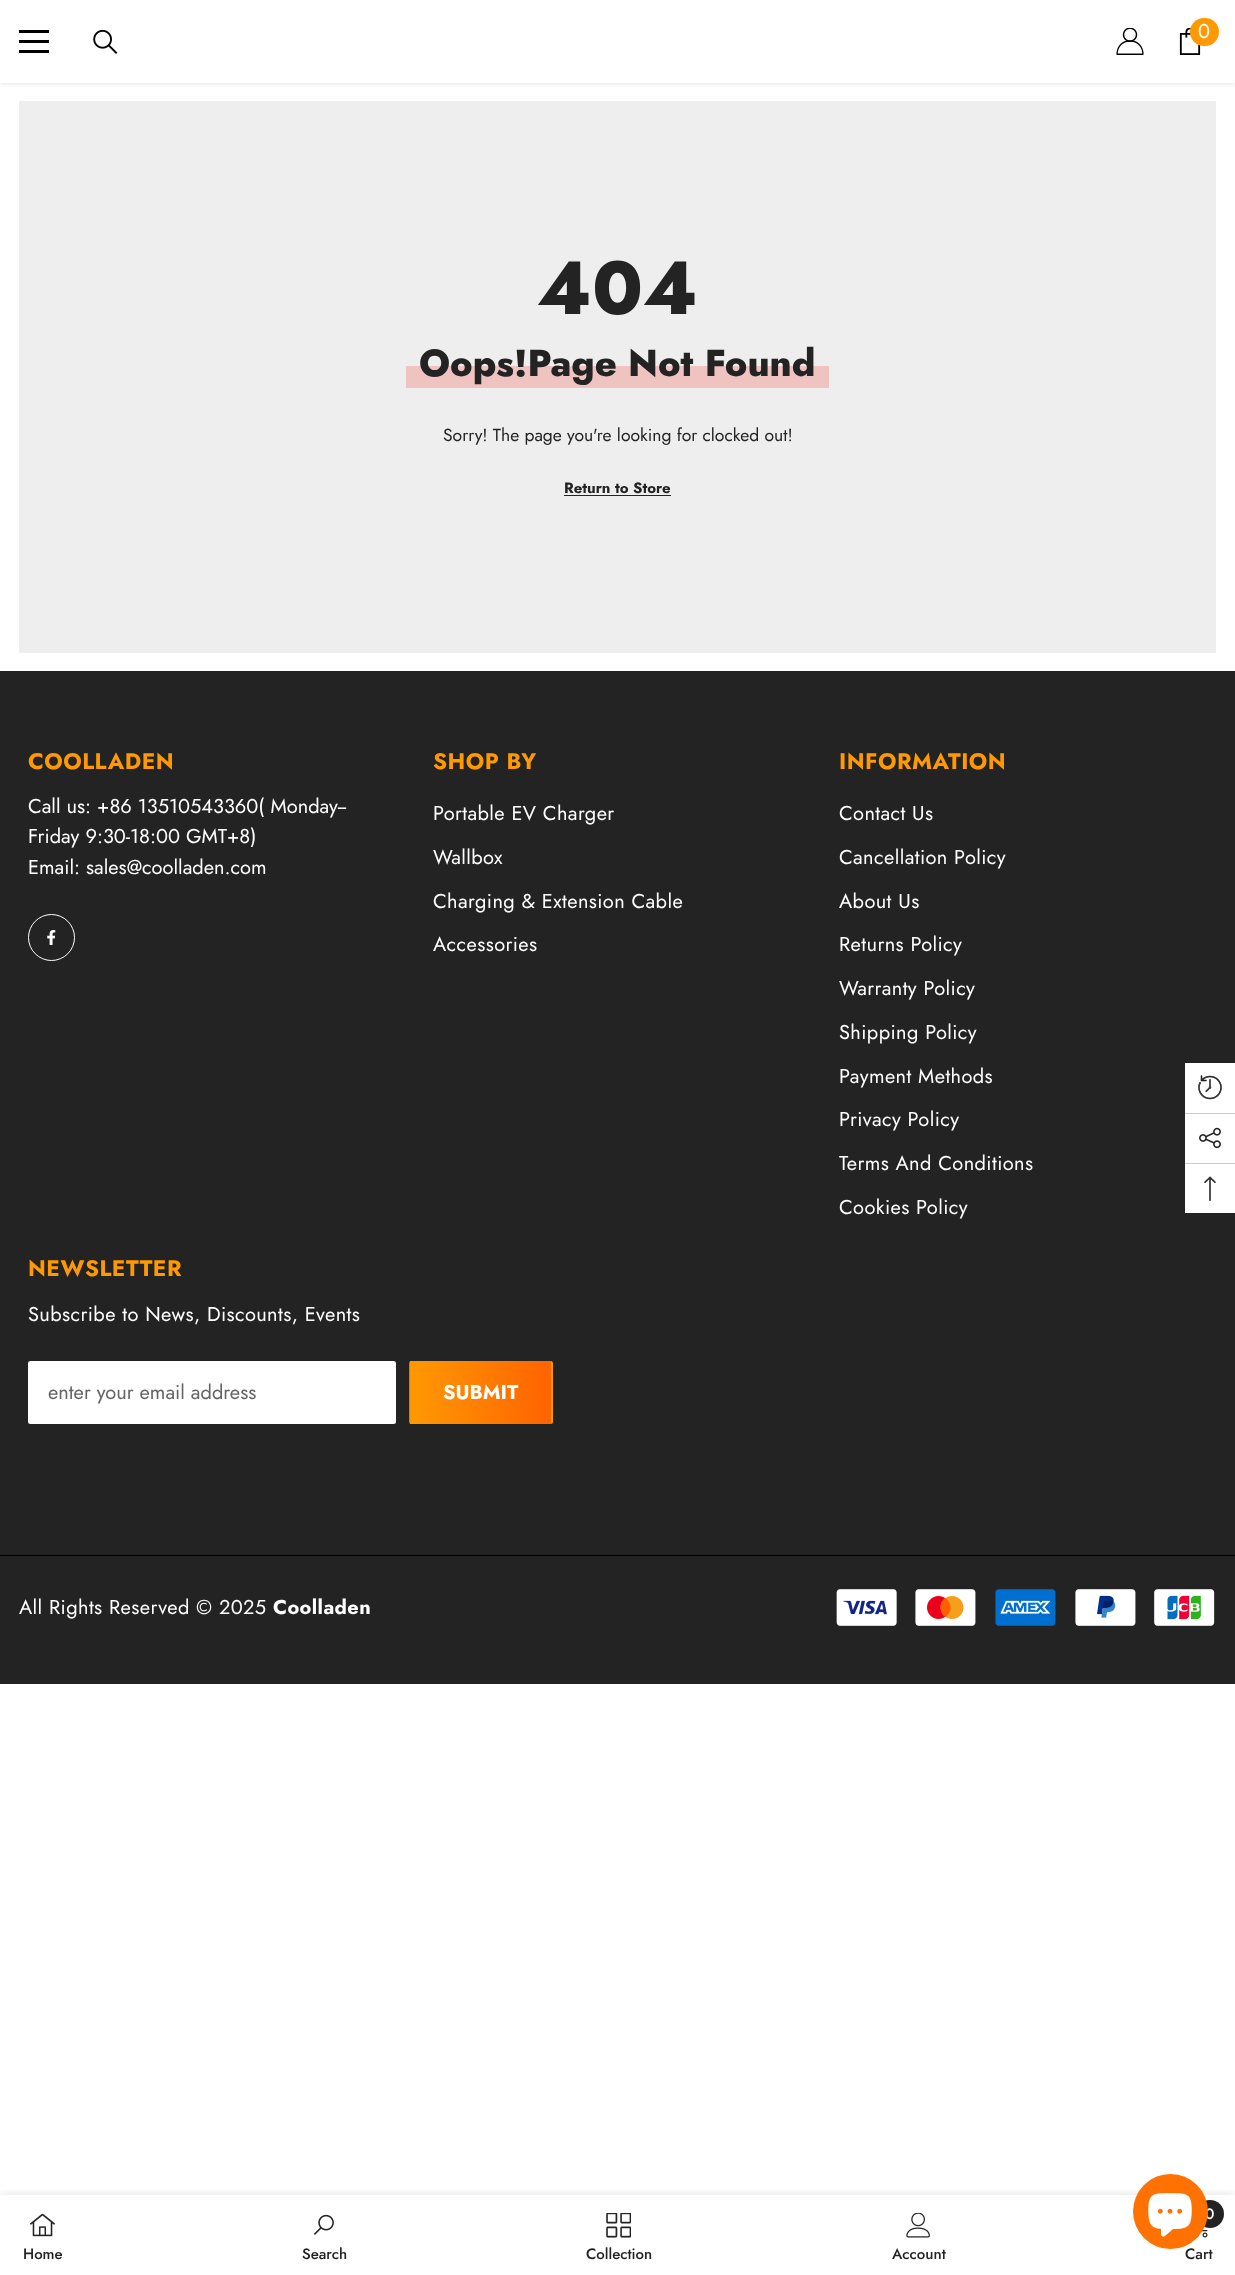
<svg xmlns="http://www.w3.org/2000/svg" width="1235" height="2275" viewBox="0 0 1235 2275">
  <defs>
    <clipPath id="clip1"><rect x="409" y="1361" width="144" height="63" rx="2.5"/></clipPath>
    <linearGradient id="g1" gradientUnits="userSpaceOnUse" x1="269" y1="1393" x2="410" y2="1393"><stop offset="0" stop-color="rgb(255,153,3)"/><stop offset="0.97" stop-color="rgb(255,101,0)"/></linearGradient>
    <linearGradient id="g2" gradientUnits="userSpaceOnUse" x1="410" y1="1393" x2="551" y2="1393"><stop offset="0" stop-color="rgb(255,153,3)"/><stop offset="0.97" stop-color="rgb(255,101,0)"/></linearGradient>
    <linearGradient id="g3" gradientUnits="userSpaceOnUse" x1="551" y1="1393" x2="693" y2="1393"><stop offset="0" stop-color="rgb(255,153,3)"/><stop offset="0.97" stop-color="rgb(255,101,0)"/></linearGradient>
    <clipPath id="clip2"><rect x="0" y="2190" width="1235" height="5"/></clipPath>
  </defs>
  <rect width="100%" height="100%" fill="rgb(255,255,255)"/>
  <rect x="0" y="1" width="1235" height="83" fill="rgba(0,0,0,0.1)" filter="blur(2px)"/>
  <rect x="0" y="0" width="1235" height="83" fill="rgb(255,255,255)"/>
  <rect x="19" y="40" width="30" height="3" fill="rgb(0,0,0)"/>
  <rect x="19" y="30" width="30" height="3" fill="rgb(0,0,0)"/>
  <rect x="19" y="50" width="30" height="3" fill="rgb(0,0,0)"/>
  <image x="93" y="29" width="25" height="25" href="pic1.png"/>
  <image x="1116" y="28" width="28" height="27" href="pic2.png"/>
  <image x="1179" y="28" width="22" height="27" href="pic3.png"/>
  <rect x="1190" y="18" width="29" height="28" rx="14" fill="rgb(255,153,3)"/>
  <text x="1198" y="38" font-family="Jost" font-size="20" fill="rgb(255,255,255)">0</text>
  <rect x="19" y="101" width="1197" height="552" fill="rgb(238,238,238)"/>
  <text x="537" y="314" font-family="Jost" font-size="75" font-weight="800" fill="rgb(35,35,35)">404</text>
  <rect x="406" y="366" width="423" height="22" fill="rgb(239,195,192)"/>
  <text x="419" y="376" font-family="Jost" font-size="37.5" font-weight="800" fill="rgb(35,35,35)">Oops!Page Not Found</text>
  <text x="443" y="441" font-family="Jost" font-size="17.5" fill="rgb(35,35,35)">Sorry! The page you're looking for clocked out!</text>
  <text x="564" y="493" font-family="Jost" font-size="15" font-weight="bold" fill="rgb(35,35,35)">Return to Store</text>
  <rect x="564" y="495" width="107" height="1" fill="rgb(35,35,35)"/>
  <rect x="0" y="671" width="1235" height="884" fill="rgb(35,35,35)"/>
  <text x="28" y="769" font-family="Jost" font-size="22.5" font-weight="bold" letter-spacing="0.5" fill="rgb(255,153,3)">COOLLADEN</text>
  <g font-family="Jost" font-size="20" fill="rgb(255,255,255)">
    <text>
      <tspan x="28" y="813">Call us: +86 13510543360( Monday--</tspan>
      <tspan x="28" y="843">Friday 9:30-18:00 GMT+8)</tspan>
      <tspan x="28" y="874">Email: sales@coolladen.com</tspan>
    </text>
  </g>
  <circle cx="51.5" cy="937.5" r="23" fill="none" stroke="rgb(255,255,255)"/>
  <image x="47" y="930" width="9" height="15" href="pic4.png"/>
  <text x="433" y="769" font-family="Jost" font-size="22.5" font-weight="bold" letter-spacing="0.5" fill="rgb(255,153,3)">SHOP BY</text>
  <g font-family="Jost" font-size="20" letter-spacing="0.4" fill="rgb(255,255,255)">
    <text x="433" y="820">Portable EV Charger</text>
    <text x="433" y="864">Wallbox</text>
    <text x="433" y="908">Charging &amp; Extension Cable</text>
    <text x="433" y="951">Accessories</text>
  </g>
  <text x="839" y="769" font-family="Jost" font-size="22.5" font-weight="bold" letter-spacing="0.5" fill="rgb(255,153,3)">INFORMATION</text>
  <g font-family="Jost" font-size="20" letter-spacing="0.4" fill="rgb(255,255,255)">
    <text x="839" y="820">Contact Us</text>
    <text x="839" y="864">Cancellation Policy</text>
    <text x="839" y="908">About Us</text>
    <text x="839" y="951">Returns Policy</text>
    <text x="839" y="995">Warranty Policy</text>
    <text x="839" y="1039">Shipping Policy</text>
    <text x="839" y="1083">Payment Methods</text>
    <text x="839" y="1126">Privacy Policy</text>
    <text x="839" y="1170">Terms And Conditions</text>
    <text x="839" y="1214">Cookies Policy</text>
  </g>
  <text x="28" y="1276" font-family="Jost" font-size="22.5" font-weight="bold" letter-spacing="0.5" fill="rgb(255,153,3)">NEWSLETTER</text>
  <text x="28" y="1321" font-family="Jost" font-size="20" letter-spacing="0.4" fill="rgb(255,255,255)">Subscribe to News, Discounts, Events</text>
  <rect x="28" y="1361" width="368" height="63" rx="2.5" fill="rgb(255,255,255)"/>
  <text x="48" y="1399" font-family="Jost" font-size="20" fill="rgb(100,100,100)">enter your email address</text>
  <g clip-path="url(#clip1)">
    <rect x="409" y="1361" width="1" height="63" fill="url(#g1)"/>
  </g>
  <rect x="410" y="1361" width="141" height="63" fill="url(#g2)"/>
  <g clip-path="url(#clip1)">
    <rect x="551" y="1361" width="2" height="63" fill="url(#g3)"/>
  </g>
  <text x="443" y="1399" font-family="Jost" font-size="20" font-weight="bold" fill="rgb(255,255,255)">SUBMIT</text>
  <rect x="0" y="1556" width="1235" height="128" fill="rgb(35,35,35)"/>
  <rect x="0" y="1555" width="1235" height="1" fill="rgb(0,0,0)"/>
  <text x="19" y="1614" font-family="Jost" font-size="20" letter-spacing="0.4" fill="rgb(255,255,255)">All Rights Reserved © 2025</text>
  <text x="273" y="1614" font-family="Jost" font-size="20" font-weight="bold" letter-spacing="0.4" fill="rgb(255,255,255)">Coolladen</text>
  <image x="836" y="1589" width="61" height="37" href="pic5.png"/>
  <image x="915" y="1589" width="61" height="37" href="pic6.png"/>
  <image x="995" y="1589" width="61" height="37" href="pic7.png"/>
  <image x="1075" y="1589" width="61" height="37" href="pic8.png"/>
  <image x="1154" y="1589" width="61" height="37" href="pic9.png"/>
  <g clip-path="url(#clip2)">
    <rect x="0" y="2195" width="1235" height="80" fill="rgba(0,0,0,0.12)" filter="blur(5.5px)"/>
  </g>
  <image x="30" y="2213" width="25" height="24" href="pic10.png"/>
  <text x="23" y="2259" font-family="Jost" font-size="15" font-weight="500" fill="rgb(35,35,35)">Home</text>
  <image x="313" y="2214" width="21" height="21" href="pic11.png"/>
  <text x="302" y="2259" font-family="Jost" font-size="15" font-weight="500" fill="rgb(35,35,35)">Search</text>
  <image x="606" y="2213" width="25" height="25" href="pic12.png"/>
  <text x="586" y="2259" font-family="Jost" font-size="15" font-weight="500" fill="rgb(35,35,35)">Collection</text>
  <image x="906" y="2213" width="24" height="25" href="pic13.png"/>
  <text x="892" y="2259" font-family="Jost" font-size="15" font-weight="500" fill="rgb(35,35,35)">Account</text>
  <image x="1197" y="2226" width="11" height="12" href="pic14.png"/>
  <circle cx="1210" cy="2214" r="14" fill="rgb(35,35,35)"/>
  <text x="1205" y="2219" font-family="Jost" font-size="15" font-weight="500" fill="rgb(255,255,255)">0</text>
  <text x="1185" y="2259" font-family="Jost" font-size="15" font-weight="500" fill="rgb(35,35,35)">Cart</text>
  <rect x="1185" y="1063" width="50" height="150" fill="rgb(255,255,255)"/>
  <image x="1198" y="1075" width="24" height="25" href="pic15.png"/>
  <rect x="1185" y="1113" width="50" height="1" fill="rgb(204,204,204)"/>
  <image x="1199" y="1127" width="22" height="22" href="pic16.png"/>
  <rect x="1185" y="1163" width="50" height="1" fill="rgb(204,204,204)"/>
  <image x="1204" y="1176" width="12" height="25" href="pic17.png"/>
  <circle cx="1170.5" cy="2211.5" r="37.5" fill="rgb(255,113,1)"/>
  <image x="1148" y="2193" width="44" height="44" href="pic18.png"/>
</svg>
